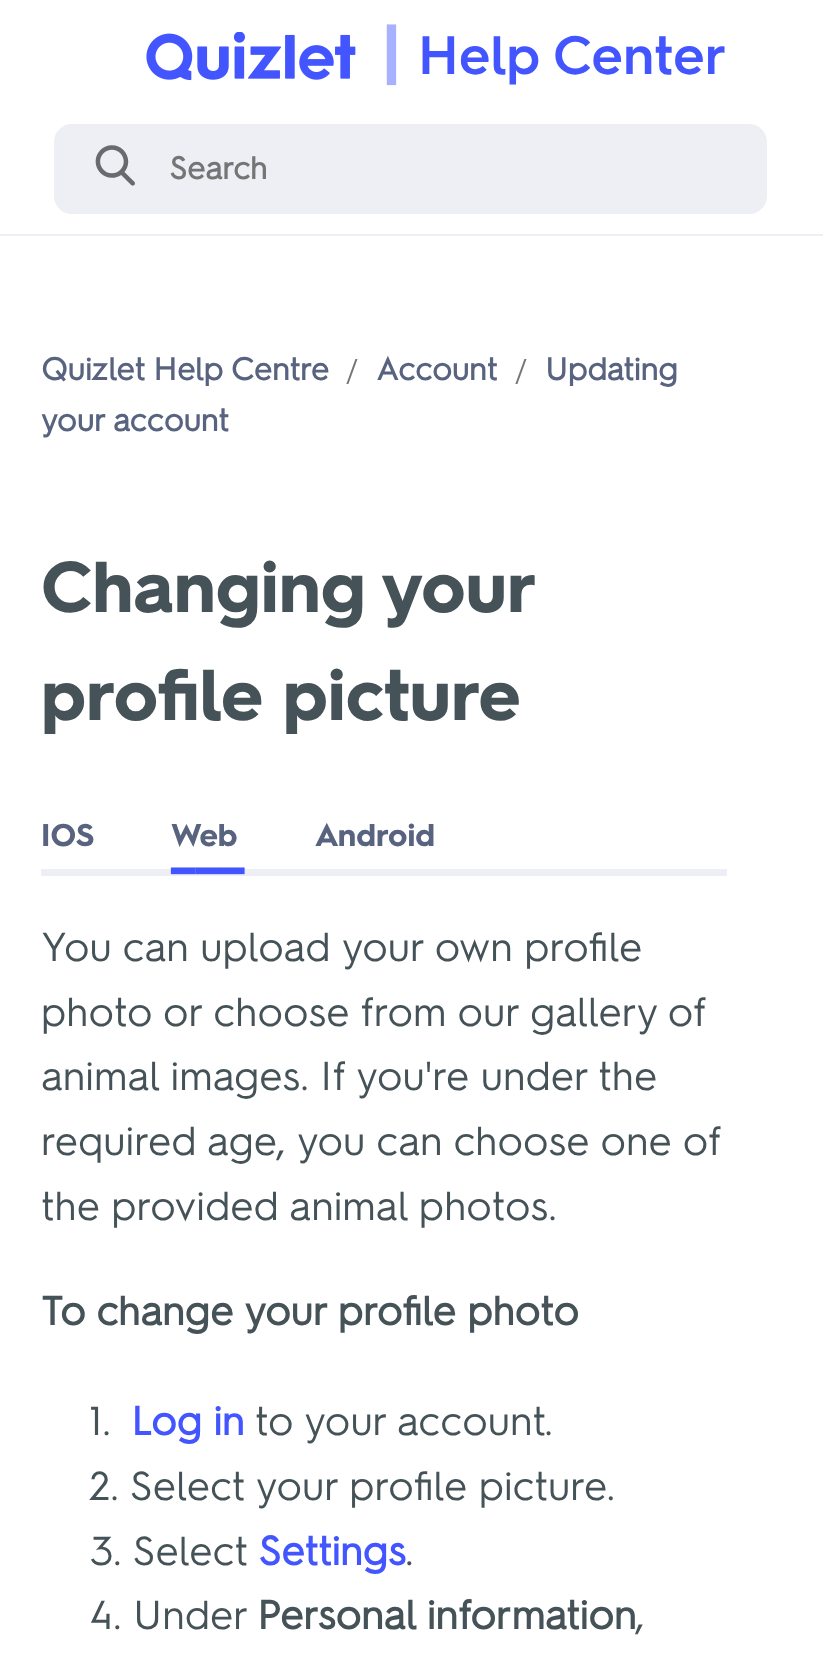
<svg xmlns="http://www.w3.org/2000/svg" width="823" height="1673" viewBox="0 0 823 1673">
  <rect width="100%" height="100%" fill="rgb(255,255,255)"/>
  <rect x="0" y="234" width="823" height="2" fill="rgb(237,239,244)"/>
  <image x="146" y="32" width="210" height="49" href="pic1.png"/>
  <text x="380" y="83" font-family="'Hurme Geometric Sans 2'" font-size="81" font-weight="600" letter-spacing="-8" fill="rgb(168,177,255)">|</text>
  <text x="418" y="74" font-family="'Hurme Geometric Sans 2'" font-size="54" font-weight="600" fill="rgb(66,85,255)">Help Center</text>
  <rect x="55" y="125" width="711" height="88" rx="17" fill="rgb(237,239,244)" stroke="rgb(237,239,244)" stroke-width="2"/>
  <image x="95" y="145" width="40" height="41" href="pic2.png"/>
  <text x="169" y="179" font-family="'Hurme Geometric Sans 2'" font-size="31.5" font-weight="bold" fill="rgb(117,117,117)">Search</text>
  <text x="41" y="380" font-family="'Hurme Geometric Sans 2'" font-size="31.5" font-weight="bold" fill="rgb(88,99,128)">Quizlet Help Centre</text>
  <text x="346" y="380" font-family="'Hurme Geometric Sans 2'" font-size="29" fill="rgb(117,117,117)">/</text>
  <text x="376" y="380" font-family="'Hurme Geometric Sans 2'" font-size="31.5" font-weight="bold" fill="rgb(88,99,128)">Account</text>
  <text x="515" y="380" font-family="'Hurme Geometric Sans 2'" font-size="29" fill="rgb(117,117,117)">/</text>
  <g font-family="'Hurme Geometric Sans 2'" font-size="31.5" font-weight="bold" fill="rgb(88,99,128)">
    <text x="545" y="380">Updating</text>
    <text x="41" y="431">your account</text>
  </g>
  <g font-family="'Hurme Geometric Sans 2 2'" font-size="72" font-weight="bold" fill="rgb(69,83,88)">
    <text>
      <tspan x="41" y="612" word-spacing="-4">Changing your</tspan>
      <tspan x="41" y="720">profile picture</tspan>
    </text>
  </g>
  <g font-family="'Hurme Geometric Sans 2 2'" font-size="31.5" font-weight="bold" fill="rgb(88,99,128)">
    <text x="41" y="846">IOS</text>
    <text x="171" y="846">Web</text>
  </g>
  <rect x="41" y="869" width="686" height="7" fill="rgb(237,239,244)"/>
  <text x="171" y="864" font-family="'Hurme Geometric Sans 2 2'" font-size="58" font-weight="bold" fill="rgb(66,85,255)">___</text>
  <text x="315" y="846" font-family="'Hurme Geometric Sans 2 2'" font-size="31.5" font-weight="bold" fill="rgb(88,99,128)">Android</text>
  <g font-family="'Hurme Geometric Sans 2'" font-size="40.5" fill="rgb(69,83,88)">
    <text>
      <tspan x="41" y="961">You can upload your own profile</tspan>
      <tspan x="41" y="1026">photo or choose from our gallery of</tspan>
      <tspan x="41" y="1090">animal images. If you're under the</tspan>
      <tspan x="41" y="1155">required age, you can choose one of</tspan>
      <tspan x="41" y="1220">the provided animal photos.</tspan>
    </text>
  </g>
  <text x="41" y="1325" font-family="'Hurme Geometric Sans 2'" font-size="40.5" font-weight="bold" fill="rgb(69,83,88)">To change your profile photo</text>
  <text x="89" y="1435" font-family="'Hurme Geometric Sans 2'" font-size="40.5" fill="rgb(69,83,88)">1.</text>
  <text x="131" y="1435" font-family="'Hurme Geometric Sans 2'" font-size="40.5" font-weight="bold" fill="rgb(66,85,255)">Log in</text>
  <g font-family="'Hurme Geometric Sans 2'" font-size="40.5" fill="rgb(69,83,88)">
    <text x="255" y="1435">to your account.</text>
    <text x="89" y="1500">2. Select your profile picture.</text>
    <text x="90" y="1565">3. Select</text>
  </g>
  <text x="258" y="1565" font-family="'Hurme Geometric Sans 2'" font-size="40.5" font-weight="bold" fill="rgb(66,85,255)">Settings</text>
  <g font-family="'Hurme Geometric Sans 2'" font-size="40.5" fill="rgb(69,83,88)">
    <text x="405" y="1565">.</text>
    <text x="89" y="1629">4. Under</text>
  </g>
  <text x="257" y="1629" font-family="'Hurme Geometric Sans 2'" font-size="40.5" font-weight="bold" fill="rgb(69,83,88)">Personal information</text>
  <text x="636" y="1629" font-family="'Hurme Geometric Sans 2'" font-size="40.5" fill="rgb(69,83,88)">,</text>
</svg>
